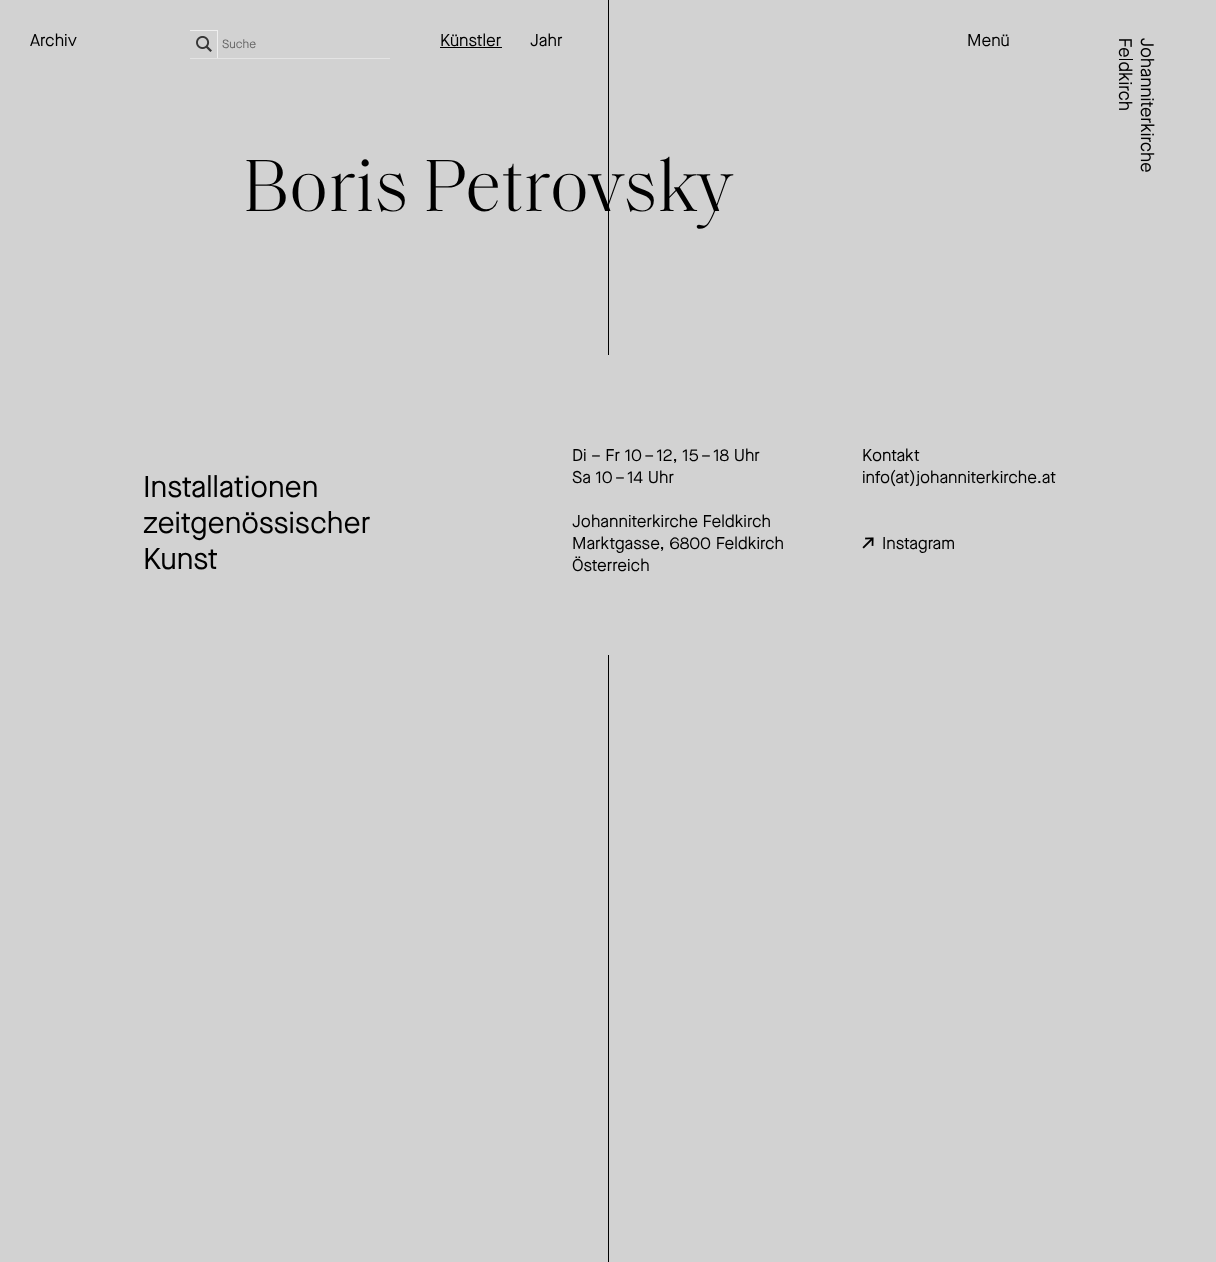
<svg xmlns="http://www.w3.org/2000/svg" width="1216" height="1262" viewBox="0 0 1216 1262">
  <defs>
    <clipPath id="clip1"><rect x="190" y="30" width="28" height="28"/></clipPath>
  </defs>
  <rect width="100%" height="100%" fill="rgb(210,210,210)"/>
  <rect x="608" y="0" width="1" height="1262" fill="rgb(0,0,0)"/>
  <text x="30" y="46" font-family="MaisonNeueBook" font-size="17" fill="rgb(0,0,0)">Archiv</text>
  <rect x="190" y="58" width="200" height="1" fill="rgb(228,228,228)"/>
  <g clip-path="url(#clip1)">
    <path d="M91-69H317V157H91ZM189 31H217V59H189Z" fill="rgb(239,239,239)" fill-rule="evenodd"/>
  </g>
  <image x="196" y="36" width="16" height="16" href="pic1.png"/>
  <text x="222" y="48" font-family="MaisonNeueBook" font-size="12" fill="rgb(103,103,103)">Suche</text>
  <text x="440" y="46" font-family="MaisonNeueBook" font-size="17" fill="rgb(0,0,0)">Künstler</text>
  <rect x="440" y="47" width="62" height="1" fill="rgb(0,0,0)"/>
  <g font-family="MaisonNeueBook" font-size="17" fill="rgb(0,0,0)">
    <text x="530" y="46">Jahr</text>
    <text x="967" y="46">Menü</text>
  </g>
  <image x="1118" y="38" width="37" height="134" href="pic2.png"/>
  <g font-family="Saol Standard" font-size="75" font-weight="300" fill="rgb(0,0,0)">
    <text x="243" y="211">Boris Petr</text>
    <text x="550" y="211">ovsky</text>
  </g>
  <rect x="608" y="355" width="1" height="300" fill="rgb(210,210,210)"/>
  <g font-family="MaisonNeueBook" font-size="30" fill="rgb(0,0,0)">
    <text>
      <tspan x="143" y="497">Installationen</tspan>
      <tspan x="143" y="533">zeitgenössischer</tspan>
      <tspan x="143" y="569">Kunst</tspan>
    </text>
  </g>
  <g font-family="MaisonNeueBook" font-size="17" fill="rgb(0,0,0)">
    <text>
      <tspan x="572" y="461">Di – Fr 10 – 12, 15 – 18 Uhr</tspan>
      <tspan x="572" y="483">Sa 10 – 14 Uhr</tspan>
    </text>
    <text>
      <tspan x="572" y="527">Johanniterkirche Feldkirch</tspan>
      <tspan x="572" y="549">Marktgasse, 6800 Feldkirch</tspan>
      <tspan x="572" y="571">Österreich</tspan>
    </text>
    <text>
      <tspan x="862" y="461">Kontakt</tspan>
      <tspan x="862" y="483">info(at)johanniterkirche.at</tspan>
    </text>
  </g>
  <image x="862" y="537" width="12" height="12" href="pic3.png"/>
  <text x="882" y="549" font-family="MaisonNeueBook" font-size="17" fill="rgb(0,0,0)">Instagram</text>
</svg>
